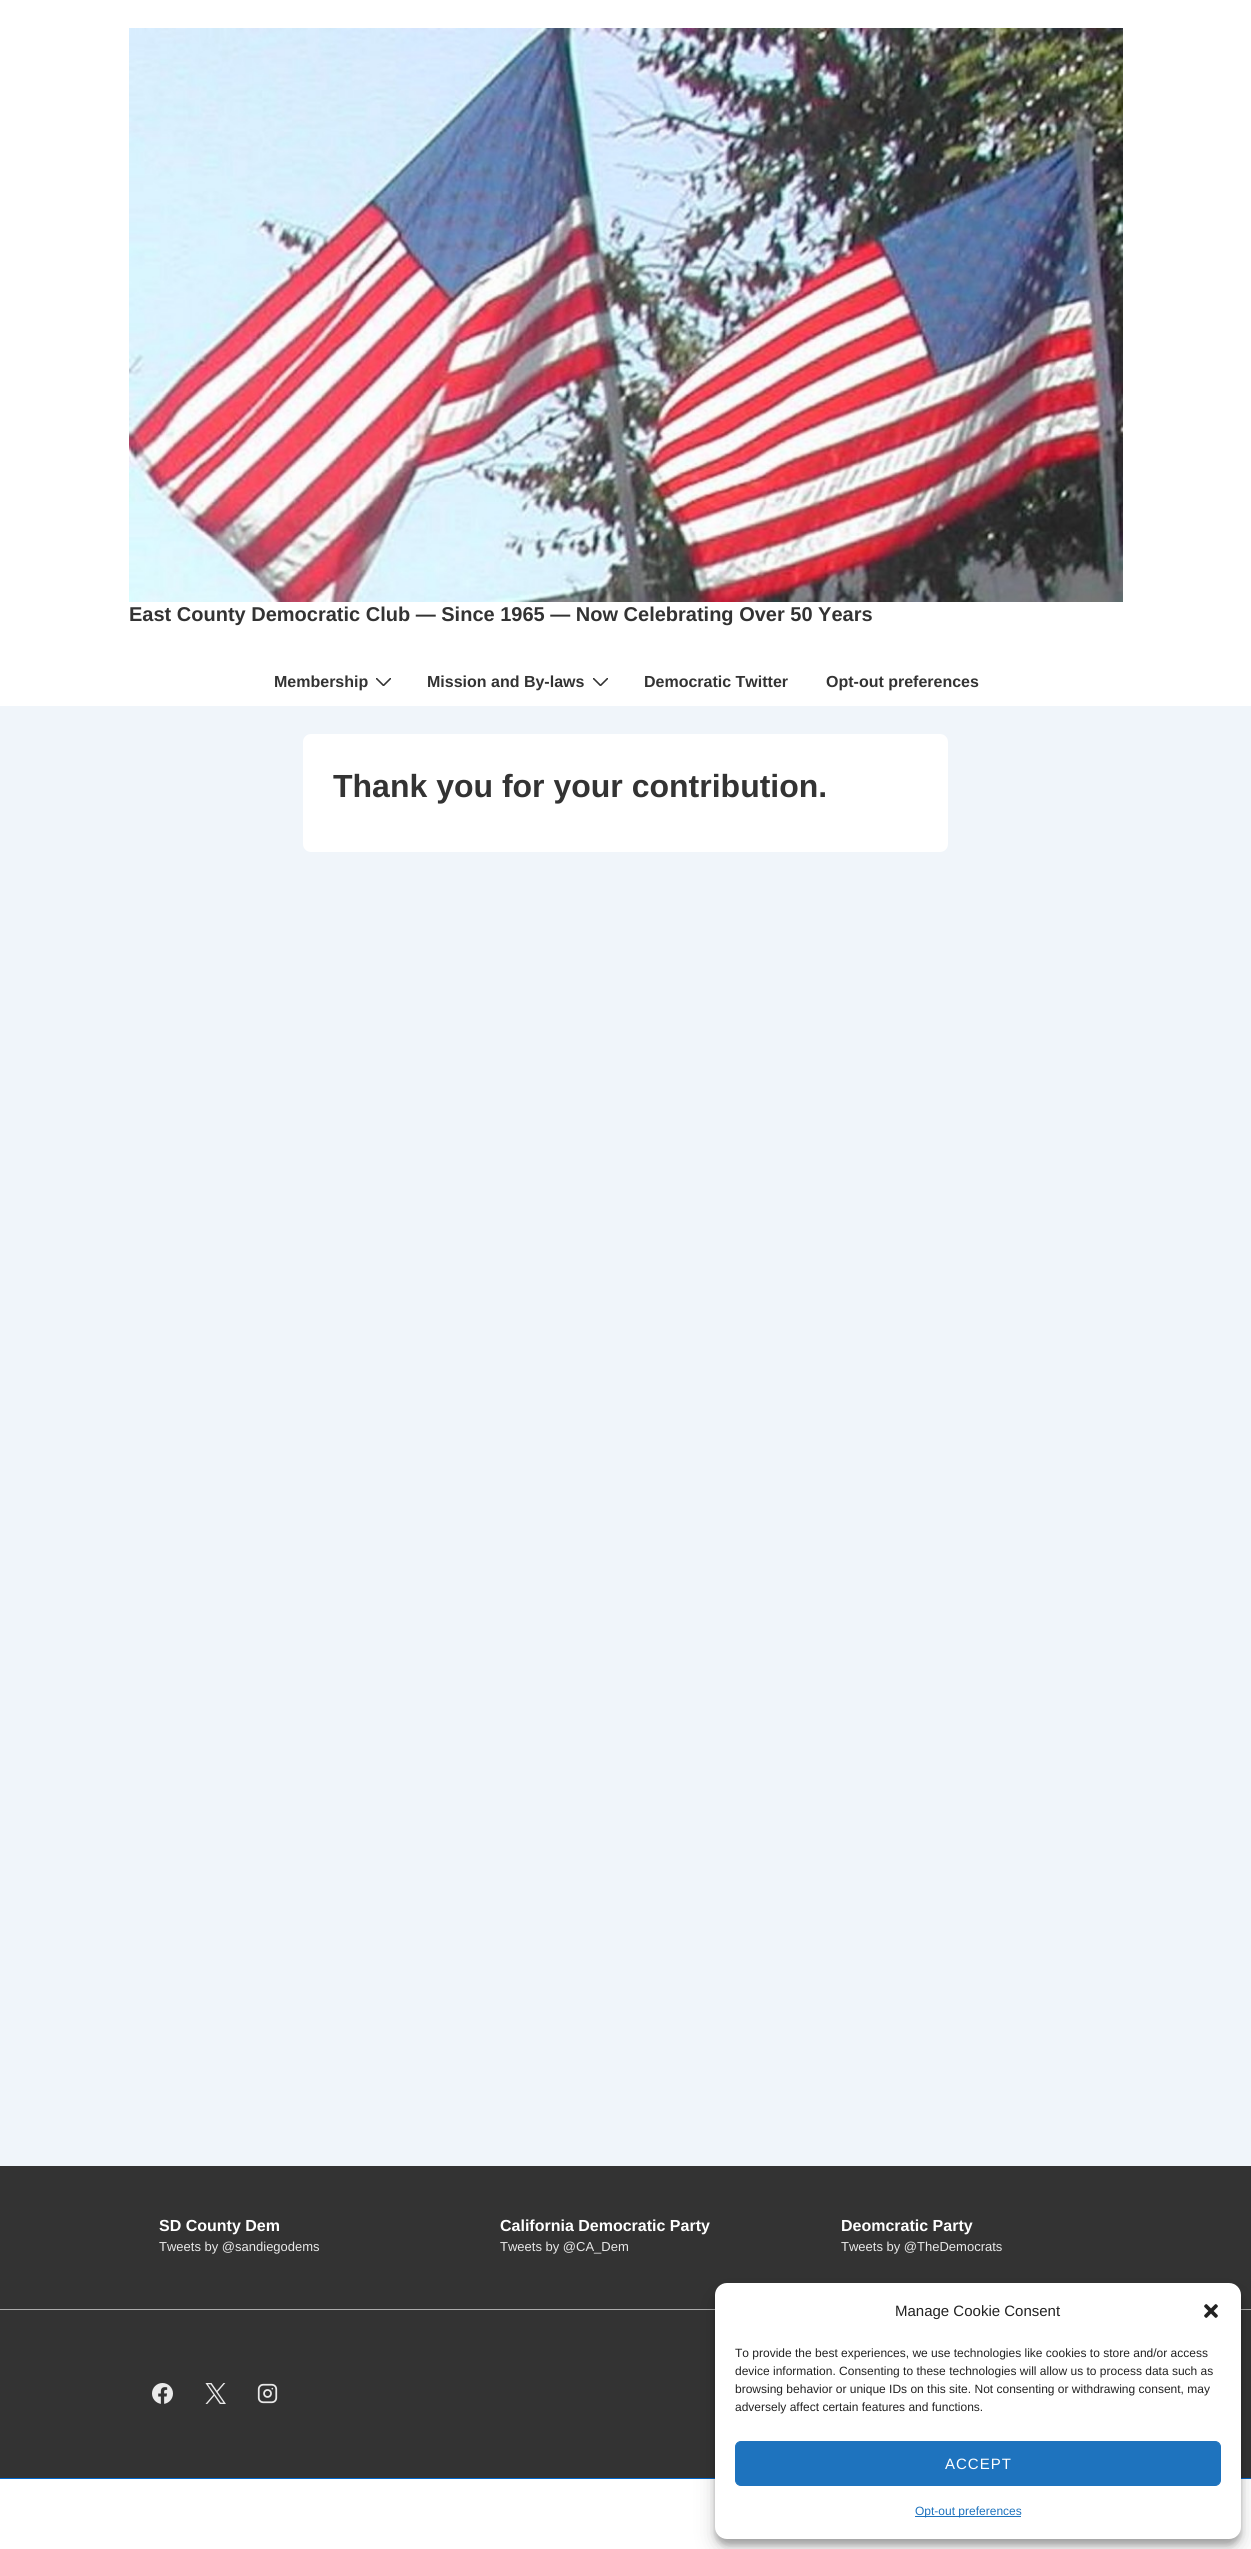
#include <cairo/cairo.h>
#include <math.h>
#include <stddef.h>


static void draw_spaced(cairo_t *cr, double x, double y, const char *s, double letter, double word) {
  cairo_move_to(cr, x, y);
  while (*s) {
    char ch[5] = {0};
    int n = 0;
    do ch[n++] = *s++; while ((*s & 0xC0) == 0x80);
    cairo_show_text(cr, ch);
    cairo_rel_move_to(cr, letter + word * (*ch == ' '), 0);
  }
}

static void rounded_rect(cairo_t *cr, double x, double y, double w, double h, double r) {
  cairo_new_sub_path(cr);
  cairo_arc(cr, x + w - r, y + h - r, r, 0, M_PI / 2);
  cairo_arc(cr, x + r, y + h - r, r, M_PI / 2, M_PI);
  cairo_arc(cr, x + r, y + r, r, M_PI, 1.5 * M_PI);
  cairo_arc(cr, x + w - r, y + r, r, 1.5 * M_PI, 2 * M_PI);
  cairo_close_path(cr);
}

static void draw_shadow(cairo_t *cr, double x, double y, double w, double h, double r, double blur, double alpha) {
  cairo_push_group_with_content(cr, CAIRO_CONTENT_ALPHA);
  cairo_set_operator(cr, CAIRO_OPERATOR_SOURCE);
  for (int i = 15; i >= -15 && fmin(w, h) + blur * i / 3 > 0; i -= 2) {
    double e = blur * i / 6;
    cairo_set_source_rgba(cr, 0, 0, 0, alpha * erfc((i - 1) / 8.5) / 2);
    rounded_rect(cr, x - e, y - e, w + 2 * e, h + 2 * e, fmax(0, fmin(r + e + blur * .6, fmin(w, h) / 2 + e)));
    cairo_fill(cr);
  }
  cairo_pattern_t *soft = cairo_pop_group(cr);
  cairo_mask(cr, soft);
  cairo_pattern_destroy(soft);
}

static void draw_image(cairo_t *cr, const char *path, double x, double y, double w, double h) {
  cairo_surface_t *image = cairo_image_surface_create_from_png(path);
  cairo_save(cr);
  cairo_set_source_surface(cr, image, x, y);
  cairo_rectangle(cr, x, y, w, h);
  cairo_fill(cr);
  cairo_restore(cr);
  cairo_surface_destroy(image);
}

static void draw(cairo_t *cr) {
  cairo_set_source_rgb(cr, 240 / 255.0, 245 / 255.0, 250 / 255.0);
  cairo_paint(cr);
  cairo_set_source_rgb(cr, 1, 1, 1);
  cairo_rectangle(cr, 0, 0, 1251, 706);
  cairo_fill(cr);
  draw_image(cr, "images/1.png", 129, 28, 994, 574);
  cairo_save(cr);
  cairo_rectangle(cr, 376, 678, 15, 8);
  cairo_clip(cr);
  cairo_new_path(cr);
  cairo_move_to(cr, 376.5, 678.5);
  cairo_line_to(cr, 383.5, 685.5);
  cairo_line_to(cr, 390.5, 678.5);
  cairo_set_source_rgb(cr, 51 / 255.0, 51 / 255.0, 51 / 255.0);
  cairo_set_line_width(cr, 1.6);
  cairo_set_line_cap(cr, CAIRO_LINE_CAP_ROUND);
  cairo_stroke(cr);
  cairo_restore(cr);
  cairo_save(cr);
  cairo_rectangle(cr, 593, 678, 15, 8);
  cairo_clip(cr);
  cairo_new_path(cr);
  cairo_move_to(cr, 593.5, 678.5);
  cairo_line_to(cr, 600.5, 685.5);
  cairo_line_to(cr, 607.5, 678.5);
  cairo_set_source_rgb(cr, 51 / 255.0, 51 / 255.0, 51 / 255.0);
  cairo_set_line_width(cr, 1.6);
  cairo_set_line_cap(cr, CAIRO_LINE_CAP_ROUND);
  cairo_stroke(cr);
  cairo_restore(cr);
  rounded_rect(cr, 303, 734, 645, 118, 8);
  cairo_fill(cr);
  cairo_set_source_rgb(cr, 51 / 255.0, 51 / 255.0, 51 / 255.0);
  cairo_rectangle(cr, 0, 2166, 1251, 312);
  cairo_fill(cr);
  cairo_set_source_rgb(cr, 170 / 255.0, 170 / 255.0, 170 / 255.0);
  cairo_rectangle(cr, 0, 2309, 1251, 1);
  cairo_fill(cr);
  draw_image(cr, "images/2.png", 152, 2383, 21, 21);
  draw_image(cr, "images/3.png", 205, 2383, 21, 21);
  draw_image(cr, "images/4.png", 257, 2383, 21, 21);
  cairo_set_source_rgb(cr, 1, 1, 1);
  cairo_rectangle(cr, 0, 2479, 1251, 70);
  cairo_fill(cr);
  cairo_set_source_rgb(cr, 0, 102 / 255.0, 204 / 255.0);
  cairo_rectangle(cr, 0, 2478, 1251, 1);
  cairo_fill(cr);
  cairo_set_source_rgb(cr, 0, 0, 0);
  draw_shadow(cr, 715, 2289, 526, 256, 12, 3, 0.23);
  draw_shadow(cr, 715, 2293, 526, 256, 12, 10, 0.19);
  cairo_set_source_rgb(cr, 1, 1, 1);
  rounded_rect(cr, 715, 2283, 526, 256, 12);
  cairo_fill(cr);
  draw_image(cr, "images/5.png", 1204, 2304, 14, 14);
  cairo_set_source_rgb(cr, 30 / 255.0, 115 / 255.0, 190 / 255.0);
  rounded_rect(cr, 735.5, 2441.5, 485, 44, 5.5);
  cairo_fill_preserve(cr);
  cairo_set_line_width(cr, 1);
  cairo_stroke(cr);
  cairo_rectangle(cr, 915, 2516, 106, 1);
  cairo_fill(cr);
  cairo_select_font_face(cr, "Liberation Sans", CAIRO_FONT_SLANT_NORMAL, CAIRO_FONT_WEIGHT_BOLD);
  cairo_set_font_size(cr, 20);
  cairo_set_source_rgb(cr, 51 / 255.0, 51 / 255.0, 51 / 255.0);
  cairo_move_to(cr, 129, 621);
  cairo_show_text(cr, "East County Democratic Club — Since 1965 — Now Celebrating Over 50 Years");
  cairo_set_font_size(cr, 16);
  cairo_move_to(cr, 274, 687);
  cairo_show_text(cr, "Membership");
  cairo_move_to(cr, 427, 687);
  cairo_show_text(cr, "Mission and By-laws");
  cairo_move_to(cr, 644, 687);
  cairo_show_text(cr, "Democratic Twitter");
  cairo_move_to(cr, 826, 687);
  cairo_show_text(cr, "Opt-out preferences");
  cairo_set_font_size(cr, 32);
  cairo_move_to(cr, 333, 797);
  cairo_show_text(cr, "Thank you for your contribution.");
  cairo_set_font_size(cr, 16);
  cairo_set_source_rgb(cr, 1, 1, 1);
  cairo_move_to(cr, 159, 2231);
  cairo_show_text(cr, "SD County Dem");
  cairo_select_font_face(cr, "Liberation Sans", CAIRO_FONT_SLANT_NORMAL, CAIRO_FONT_WEIGHT_NORMAL);
  cairo_set_font_size(cr, 13);
  cairo_set_source_rgb(cr, 234 / 255.0, 234 / 255.0, 234 / 255.0);
  cairo_move_to(cr, 159, 2251);
  cairo_show_text(cr, "Tweets by @sandiegodems");
  cairo_select_font_face(cr, "Liberation Sans", CAIRO_FONT_SLANT_NORMAL, CAIRO_FONT_WEIGHT_BOLD);
  cairo_set_font_size(cr, 16);
  cairo_set_source_rgb(cr, 1, 1, 1);
  cairo_move_to(cr, 500, 2231);
  cairo_show_text(cr, "California Democratic Party");
  cairo_select_font_face(cr, "Liberation Sans", CAIRO_FONT_SLANT_NORMAL, CAIRO_FONT_WEIGHT_NORMAL);
  cairo_set_font_size(cr, 13);
  cairo_set_source_rgb(cr, 234 / 255.0, 234 / 255.0, 234 / 255.0);
  cairo_move_to(cr, 500, 2251);
  cairo_show_text(cr, "Tweets by @CA_Dem");
  cairo_select_font_face(cr, "Liberation Sans", CAIRO_FONT_SLANT_NORMAL, CAIRO_FONT_WEIGHT_BOLD);
  cairo_set_font_size(cr, 16);
  cairo_set_source_rgb(cr, 1, 1, 1);
  cairo_move_to(cr, 841, 2231);
  cairo_show_text(cr, "Deomcratic Party");
  cairo_select_font_face(cr, "Liberation Sans", CAIRO_FONT_SLANT_NORMAL, CAIRO_FONT_WEIGHT_NORMAL);
  cairo_set_font_size(cr, 13);
  cairo_set_source_rgb(cr, 234 / 255.0, 234 / 255.0, 234 / 255.0);
  cairo_move_to(cr, 841, 2251);
  cairo_show_text(cr, "Tweets by @TheDemocrats");
  cairo_set_font_size(cr, 15);
  cairo_set_source_rgb(cr, 34 / 255.0, 34 / 255.0, 34 / 255.0);
  cairo_move_to(cr, 895, 2316);
  cairo_show_text(cr, "Manage Cookie Consent");
  cairo_set_font_size(cr, 12);
  cairo_move_to(cr, 735, 2357);
  cairo_show_text(cr, "To provide the best experiences, we use technologies like cookies to store and/or access");
  cairo_move_to(cr, 735, 2375);
  cairo_show_text(cr, "device information. Consenting to these technologies will allow us to process data such as");
  cairo_move_to(cr, 735, 2393);
  cairo_show_text(cr, "browsing behavior or unique IDs on this site. Not consenting or withdrawing consent, may");
  cairo_move_to(cr, 735, 2411);
  cairo_show_text(cr, "adversely affect certain features and functions.");
  cairo_set_font_size(cr, 15);
  cairo_set_source_rgb(cr, 1, 1, 1);
  draw_spaced(cr, 945, 2469, "ACCEPT", 1, 0);
  cairo_set_font_size(cr, 12);
  cairo_set_source_rgb(cr, 30 / 255.0, 115 / 255.0, 190 / 255.0);
  cairo_move_to(cr, 915, 2515);
  cairo_show_text(cr, "Opt-out preferences");
}

int main(void) {
  cairo_surface_t *surface = cairo_image_surface_create(CAIRO_FORMAT_RGB24, 1251, 2549);
  cairo_t *cr = cairo_create(surface);
  cairo_font_options_t *options = cairo_font_options_create();
  cairo_font_options_set_hint_metrics(options, CAIRO_HINT_METRICS_OFF);
  cairo_font_options_set_hint_style(options, CAIRO_HINT_STYLE_NONE);
  cairo_set_font_options(cr, options);
  cairo_set_miter_limit(cr, 4);
  draw(cr);
  cairo_surface_write_to_png(surface, "out.png");
  cairo_font_options_destroy(options);
  cairo_destroy(cr);
  cairo_surface_destroy(surface);
  return 0;
}
